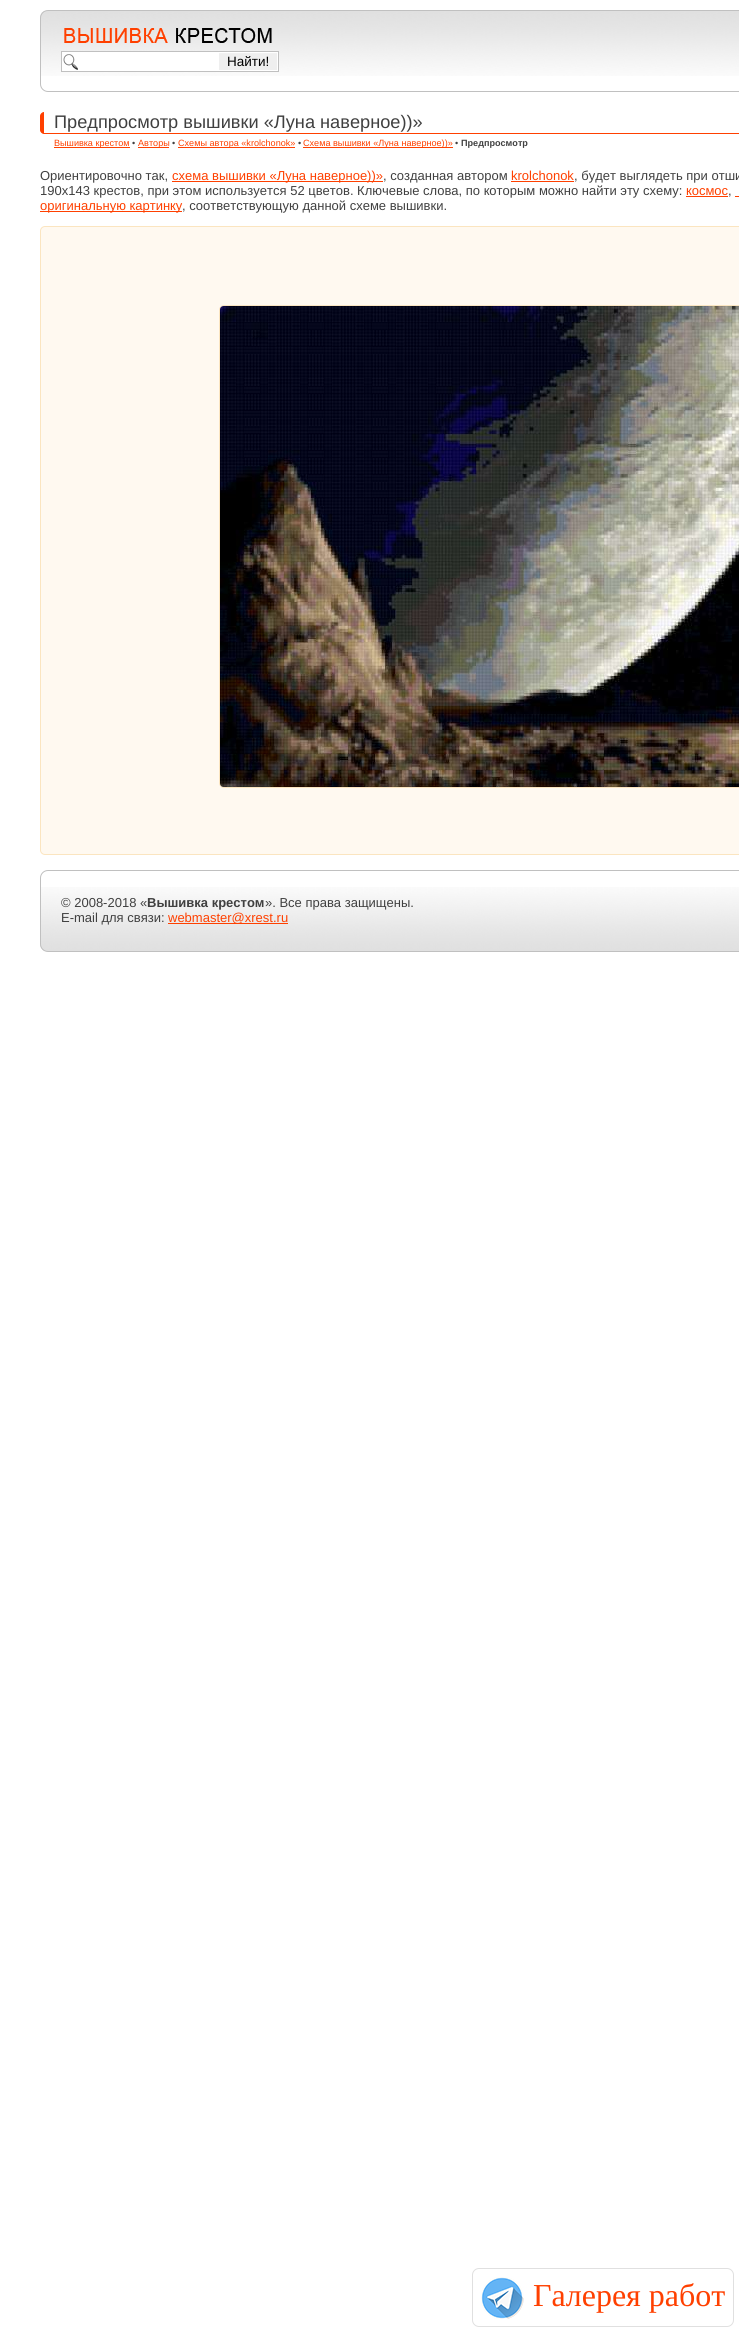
#include <cairo/cairo.h>
#include <math.h>
#include <stddef.h>


static void rounded_rect(cairo_t *cr, double x, double y, double w, double h, double r) {
  cairo_new_sub_path(cr);
  cairo_arc(cr, x + w - r, y + h - r, r, 0, M_PI / 2);
  cairo_arc(cr, x + r, y + h - r, r, M_PI / 2, M_PI);
  cairo_arc(cr, x + r, y + r, r, M_PI, 1.5 * M_PI);
  cairo_arc(cr, x + w - r, y + r, r, 1.5 * M_PI, 2 * M_PI);
  cairo_close_path(cr);
}

static void draw_image(cairo_t *cr, const char *path, double x, double y, double w, double h) {
  cairo_surface_t *image = cairo_image_surface_create_from_png(path);
  cairo_save(cr);
  cairo_set_source_surface(cr, image, x, y);
  cairo_rectangle(cr, x, y, w, h);
  cairo_fill(cr);
  cairo_restore(cr);
  cairo_surface_destroy(image);
}

static void draw(cairo_t *cr) {
  cairo_set_source_rgb(cr, 1, 1, 1);
  cairo_paint(cr);
  draw_image(cr, "images/1.png", 40, 11, 699, 65);
  rounded_rect(cr, 40.5, 10.5, 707, 81, 7.5);
  cairo_set_source_rgb(cr, 192 / 255.0, 192 / 255.0, 192 / 255.0);
  cairo_set_line_width(cr, 1);
  cairo_stroke(cr);
  draw_image(cr, "images/2.png", 64, 28, 208, 15);
  cairo_set_source_rgb(cr, 1, 1, 1);
  cairo_rectangle(cr, 62, 52, 156, 19);
  cairo_fill(cr);
  draw_image(cr, "images/3.png", 63, 54, 15, 16);
  cairo_rectangle(cr, 61.5, 51.5, 217, 20);
  cairo_set_source_rgb(cr, 192 / 255.0, 192 / 255.0, 192 / 255.0);
  cairo_stroke(cr);
  cairo_set_source_rgb(cr, 239 / 255.0, 239 / 255.0, 239 / 255.0);
  cairo_rectangle(cr, 219, 54, 58, 16);
  cairo_fill(cr);
  cairo_rectangle(cr, 218.5, 52.5, 59, 18);
  cairo_set_source_rgb(cr, 1, 1, 1);
  cairo_stroke(cr);
  cairo_set_source_rgb(cr, 1, 64 / 255.0, 0);
  cairo_set_fill_rule(cr, CAIRO_FILL_RULE_EVEN_ODD);
  cairo_new_path(cr);
  cairo_move_to(cr, 44, 112);
  cairo_line_to(cr, 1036, 112);
  cairo_curve_to(cr, 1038, 112, 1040, 114, 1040, 116);
  cairo_line_to(cr, 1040, 130);
  cairo_curve_to(cr, 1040, 132, 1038, 134, 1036, 134);
  cairo_line_to(cr, 44, 134);
  cairo_curve_to(cr, 42, 134, 40, 132, 40, 130);
  cairo_line_to(cr, 40, 116);
  cairo_curve_to(cr, 40, 114, 42, 112, 44, 112);
  cairo_close_path(cr);
  cairo_move_to(cr, 44, 112);
  cairo_line_to(cr, 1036, 112);
  cairo_curve_to(cr, 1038, 112, 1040, 114, 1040, 116);
  cairo_line_to(cr, 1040, 130);
  cairo_curve_to(cr, 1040, 132, 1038, 133, 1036, 133);
  cairo_line_to(cr, 44, 133);
  cairo_close_path(cr);
  cairo_fill(cr);
  cairo_rectangle(cr, 54, 147, 76, 1);
  cairo_fill(cr);
  cairo_rectangle(cr, 138, 147, 31, 1);
  cairo_fill(cr);
  cairo_rectangle(cr, 178, 147, 117, 1);
  cairo_fill(cr);
  cairo_rectangle(cr, 303, 147, 150, 1);
  cairo_fill(cr);
  cairo_rectangle(cr, 172, 181, 211, 1);
  cairo_fill(cr);
  cairo_rectangle(cr, 511, 181, 63, 1);
  cairo_fill(cr);
  cairo_rectangle(cr, 686, 196, 42, 1);
  cairo_fill(cr);
  cairo_rectangle(cr, 735, 196, 4, 1);
  cairo_fill(cr);
  cairo_rectangle(cr, 40, 211, 142, 1);
  cairo_fill(cr);
  cairo_set_source_rgb(cr, 1, 249 / 255.0, 240 / 255.0);
  rounded_rect(cr, 40.5, 226.5, 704, 628, 4.5);
  cairo_fill_preserve(cr);
  cairo_set_source_rgb(cr, 251 / 255.0, 229 / 255.0, 192 / 255.0);
  cairo_stroke(cr);
  rounded_rect(cr, 219.5, 305.5, 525, 482, 4.5);
  cairo_stroke(cr);
  draw_image(cr, "images/4.png", 220, 306, 519, 481);
  draw_image(cr, "images/5.png", 40, 887, 699, 64);
  rounded_rect(cr, 40.5, 870.5, 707, 81, 7.5);
  cairo_set_source_rgb(cr, 192 / 255.0, 192 / 255.0, 192 / 255.0);
  cairo_stroke(cr);
  cairo_set_source_rgb(cr, 1, 64 / 255.0, 0);
  cairo_rectangle(cr, 168, 923, 120, 1);
  cairo_fill(cr);
  draw_image(cr, "images/6.png", 481, 2277, 43, 42);
  rounded_rect(cr, 472.5, 2268.5, 261, 58, 6.5);
  cairo_set_source_rgb(cr, 224 / 255.0, 224 / 255.0, 224 / 255.0);
  cairo_stroke(cr);
  cairo_select_font_face(cr, "Liberation Sans", CAIRO_FONT_SLANT_NORMAL, CAIRO_FONT_WEIGHT_NORMAL);
  cairo_set_font_size(cr, 13.5);
  cairo_set_source_rgb(cr, 0, 0, 0);
  cairo_move_to(cr, 227, 66);
  cairo_show_text(cr, "Найти!");
  cairo_set_font_size(cr, 18.2);
  cairo_set_source_rgb(cr, 64 / 255.0, 64 / 255.0, 64 / 255.0);
  cairo_move_to(cr, 54, 128);
  cairo_show_text(cr, "Предпросмотр вышивки «Луна наверное))»");
  cairo_set_font_size(cr, 9.1);
  cairo_set_source_rgb(cr, 1, 64 / 255.0, 0);
  cairo_move_to(cr, 54, 146);
  cairo_show_text(cr, "Вышивка крестом");
  cairo_set_source_rgb(cr, 64 / 255.0, 64 / 255.0, 64 / 255.0);
  cairo_move_to(cr, 132, 146);
  cairo_show_text(cr, "•");
  cairo_set_source_rgb(cr, 1, 64 / 255.0, 0);
  cairo_move_to(cr, 138, 146);
  cairo_show_text(cr, "Авторы");
  cairo_set_source_rgb(cr, 64 / 255.0, 64 / 255.0, 64 / 255.0);
  cairo_move_to(cr, 172, 146);
  cairo_show_text(cr, "•");
  cairo_set_source_rgb(cr, 1, 64 / 255.0, 0);
  cairo_move_to(cr, 178, 146);
  cairo_show_text(cr, "Схемы автора «krolchonok»");
  cairo_set_source_rgb(cr, 64 / 255.0, 64 / 255.0, 64 / 255.0);
  cairo_move_to(cr, 298, 146);
  cairo_show_text(cr, "•");
  cairo_set_source_rgb(cr, 1, 64 / 255.0, 0);
  cairo_move_to(cr, 303, 146);
  cairo_show_text(cr, "Схема вышивки «Луна наверное))»");
  cairo_set_source_rgb(cr, 64 / 255.0, 64 / 255.0, 64 / 255.0);
  cairo_move_to(cr, 455, 146);
  cairo_show_text(cr, "•");
  cairo_select_font_face(cr, "Liberation Sans", CAIRO_FONT_SLANT_NORMAL, CAIRO_FONT_WEIGHT_BOLD);
  cairo_move_to(cr, 461, 146);
  cairo_show_text(cr, "Предпросмотр");
  cairo_select_font_face(cr, "Liberation Sans", CAIRO_FONT_SLANT_NORMAL, CAIRO_FONT_WEIGHT_NORMAL);
  cairo_set_font_size(cr, 13);
  cairo_move_to(cr, 40, 180);
  cairo_show_text(cr, "Ориентировочно так,");
  cairo_set_source_rgb(cr, 1, 64 / 255.0, 0);
  cairo_move_to(cr, 172, 180);
  cairo_show_text(cr, "схема вышивки «Луна наверное))»");
  cairo_set_source_rgb(cr, 64 / 255.0, 64 / 255.0, 64 / 255.0);
  cairo_move_to(cr, 383, 180);
  cairo_show_text(cr, ", созданная автором");
  cairo_set_source_rgb(cr, 1, 64 / 255.0, 0);
  cairo_move_to(cr, 511, 180);
  cairo_show_text(cr, "krolchonok");
  cairo_set_source_rgb(cr, 64 / 255.0, 64 / 255.0, 64 / 255.0);
  cairo_move_to(cr, 574, 180);
  cairo_show_text(cr, ", будет выглядеть при отши");
  cairo_move_to(cr, 40, 195);
  cairo_show_text(cr, "190x143 крестов, при этом используется 52 цветов. Ключевые слова, по которым можно найти эту схему:");
  cairo_set_source_rgb(cr, 1, 64 / 255.0, 0);
  cairo_move_to(cr, 686, 195);
  cairo_show_text(cr, "космос");
  cairo_set_source_rgb(cr, 64 / 255.0, 64 / 255.0, 64 / 255.0);
  cairo_move_to(cr, 728, 195);
  cairo_show_text(cr, ",");
  cairo_set_source_rgb(cr, 1, 64 / 255.0, 0);
  cairo_move_to(cr, 40, 210);
  cairo_show_text(cr, "оригинальную картинку");
  cairo_set_source_rgb(cr, 64 / 255.0, 64 / 255.0, 64 / 255.0);
  cairo_move_to(cr, 182, 210);
  cairo_show_text(cr, ", соответствующую данной схеме вышивки.");
  cairo_move_to(cr, 61, 907);
  cairo_show_text(cr, "© 2008-2018 «");
  cairo_select_font_face(cr, "Liberation Sans", CAIRO_FONT_SLANT_NORMAL, CAIRO_FONT_WEIGHT_BOLD);
  cairo_move_to(cr, 147, 907);
  cairo_show_text(cr, "Вышивка крестом");
  cairo_select_font_face(cr, "Liberation Sans", CAIRO_FONT_SLANT_NORMAL, CAIRO_FONT_WEIGHT_NORMAL);
  cairo_move_to(cr, 265, 907);
  cairo_show_text(cr, "». Все права защищены.");
  cairo_move_to(cr, 61, 922);
  cairo_show_text(cr, "E-mail для связи:");
  cairo_set_source_rgb(cr, 1, 64 / 255.0, 0);
  cairo_move_to(cr, 168, 922);
  cairo_show_text(cr, "webmaster@xrest.ru");
  cairo_select_font_face(cr, "Liberation Serif", CAIRO_FONT_SLANT_NORMAL, CAIRO_FONT_WEIGHT_NORMAL);
  cairo_set_font_size(cr, 32);
  cairo_move_to(cr, 533, 2306);
  cairo_show_text(cr, "Галерея работ");
}

int main(void) {
  cairo_surface_t *surface = cairo_image_surface_create(CAIRO_FORMAT_RGB24, 739, 2332);
  cairo_t *cr = cairo_create(surface);
  cairo_font_options_t *options = cairo_font_options_create();
  cairo_font_options_set_hint_metrics(options, CAIRO_HINT_METRICS_OFF);
  cairo_font_options_set_hint_style(options, CAIRO_HINT_STYLE_NONE);
  cairo_set_font_options(cr, options);
  cairo_set_miter_limit(cr, 4);
  draw(cr);
  cairo_surface_write_to_png(surface, "out.png");
  cairo_font_options_destroy(options);
  cairo_destroy(cr);
  cairo_surface_destroy(surface);
  return 0;
}
